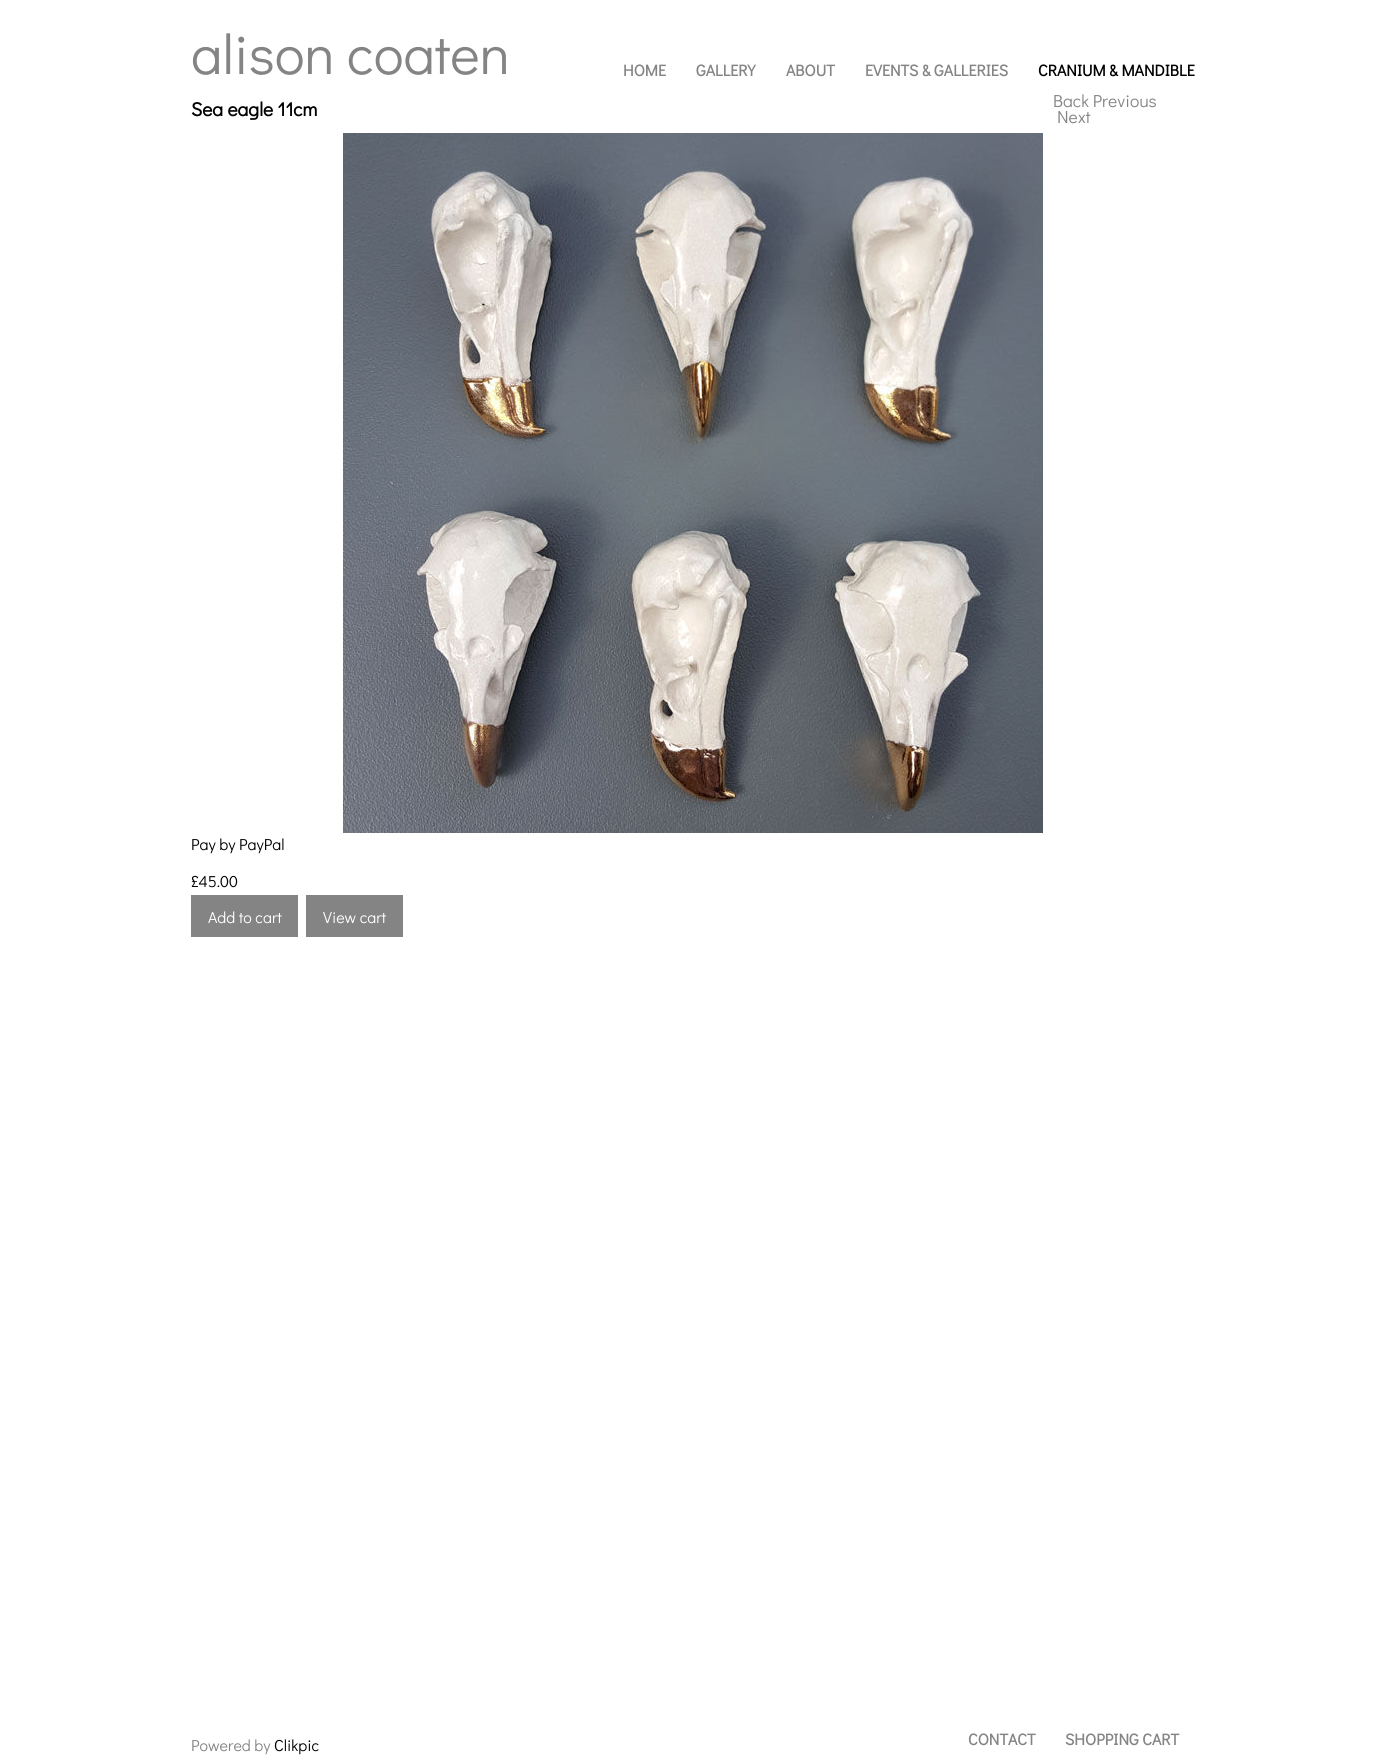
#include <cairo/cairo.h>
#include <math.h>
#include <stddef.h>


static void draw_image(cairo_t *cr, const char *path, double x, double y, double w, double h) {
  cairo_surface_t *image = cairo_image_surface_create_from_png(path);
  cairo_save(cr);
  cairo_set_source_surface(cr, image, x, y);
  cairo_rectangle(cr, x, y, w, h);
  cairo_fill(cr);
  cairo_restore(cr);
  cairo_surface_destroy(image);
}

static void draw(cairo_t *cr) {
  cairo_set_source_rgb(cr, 1, 1, 1);
  cairo_paint(cr);
  draw_image(cr, "images/1.png", 343, 133, 700, 700);
  cairo_set_source_rgb(cr, 132 / 255.0, 132 / 255.0, 132 / 255.0);
  cairo_rectangle(cr, 191, 895, 107, 42);
  cairo_fill(cr);
  cairo_rectangle(cr, 306, 895, 97, 42);
  cairo_fill(cr);
  cairo_select_font_face(cr, "Didact Gothic", CAIRO_FONT_SLANT_NORMAL, CAIRO_FONT_WEIGHT_NORMAL);
  cairo_set_font_size(cr, 56);
  cairo_move_to(cr, 191, 74);
  cairo_show_text(cr, "alison coaten");
  cairo_select_font_face(cr, "Didact Gothic", CAIRO_FONT_SLANT_NORMAL, CAIRO_FONT_WEIGHT_BOLD);
  cairo_set_font_size(cr, 16);
  cairo_move_to(cr, 623, 76);
  cairo_show_text(cr, "HOME");
  cairo_move_to(cr, 696, 76);
  cairo_show_text(cr, "GALLERY");
  cairo_move_to(cr, 786, 76);
  cairo_show_text(cr, "ABOUT");
  cairo_move_to(cr, 865, 76);
  cairo_show_text(cr, "EVENTS & GALLERIES");
  cairo_set_source_rgb(cr, 0, 0, 0);
  cairo_move_to(cr, 1038, 76);
  cairo_show_text(cr, "CRANIUM & MANDIBLE");
  cairo_set_font_size(cr, 19.25);
  cairo_move_to(cr, 191, 116);
  cairo_show_text(cr, "Sea eagle 11cm");
  cairo_select_font_face(cr, "Didact Gothic", CAIRO_FONT_SLANT_NORMAL, CAIRO_FONT_WEIGHT_NORMAL);
  cairo_set_font_size(cr, 17.5);
  cairo_set_source_rgb(cr, 132 / 255.0, 132 / 255.0, 132 / 255.0);
  cairo_move_to(cr, 1053, 107);
  cairo_show_text(cr, "Back Previous");
  cairo_move_to(cr, 1057, 123);
  cairo_show_text(cr, "Next");
  cairo_set_font_size(cr, 16);
  cairo_set_source_rgb(cr, 0, 0, 0);
  cairo_move_to(cr, 191, 850);
  cairo_show_text(cr, "Pay by PayPal");
  cairo_move_to(cr, 191, 887);
  cairo_show_text(cr, "£45.00");
  cairo_set_source_rgb(cr, 1, 1, 1);
  cairo_move_to(cr, 208, 923);
  cairo_show_text(cr, "Add to cart");
  cairo_move_to(cr, 323, 923);
  cairo_show_text(cr, "View cart");
  cairo_set_source_rgb(cr, 132 / 255.0, 132 / 255.0, 132 / 255.0);
  cairo_move_to(cr, 191, 1751);
  cairo_show_text(cr, "Powered by");
  cairo_set_source_rgb(cr, 0, 0, 0);
  cairo_move_to(cr, 274, 1751);
  cairo_show_text(cr, "Clikpic");
  cairo_select_font_face(cr, "Didact Gothic", CAIRO_FONT_SLANT_NORMAL, CAIRO_FONT_WEIGHT_BOLD);
  cairo_set_source_rgb(cr, 132 / 255.0, 132 / 255.0, 132 / 255.0);
  cairo_move_to(cr, 968, 1745);
  cairo_show_text(cr, "CONTACT");
  cairo_move_to(cr, 1065, 1745);
  cairo_show_text(cr, "SHOPPING CART");
}

int main(void) {
  cairo_surface_t *surface = cairo_image_surface_create(CAIRO_FORMAT_RGB24, 1385, 1763);
  cairo_t *cr = cairo_create(surface);
  cairo_font_options_t *options = cairo_font_options_create();
  cairo_font_options_set_hint_metrics(options, CAIRO_HINT_METRICS_OFF);
  cairo_font_options_set_hint_style(options, CAIRO_HINT_STYLE_NONE);
  cairo_set_font_options(cr, options);
  cairo_set_miter_limit(cr, 4);
  draw(cr);
  cairo_surface_write_to_png(surface, "out.png");
  cairo_font_options_destroy(options);
  cairo_destroy(cr);
  cairo_surface_destroy(surface);
  return 0;
}
